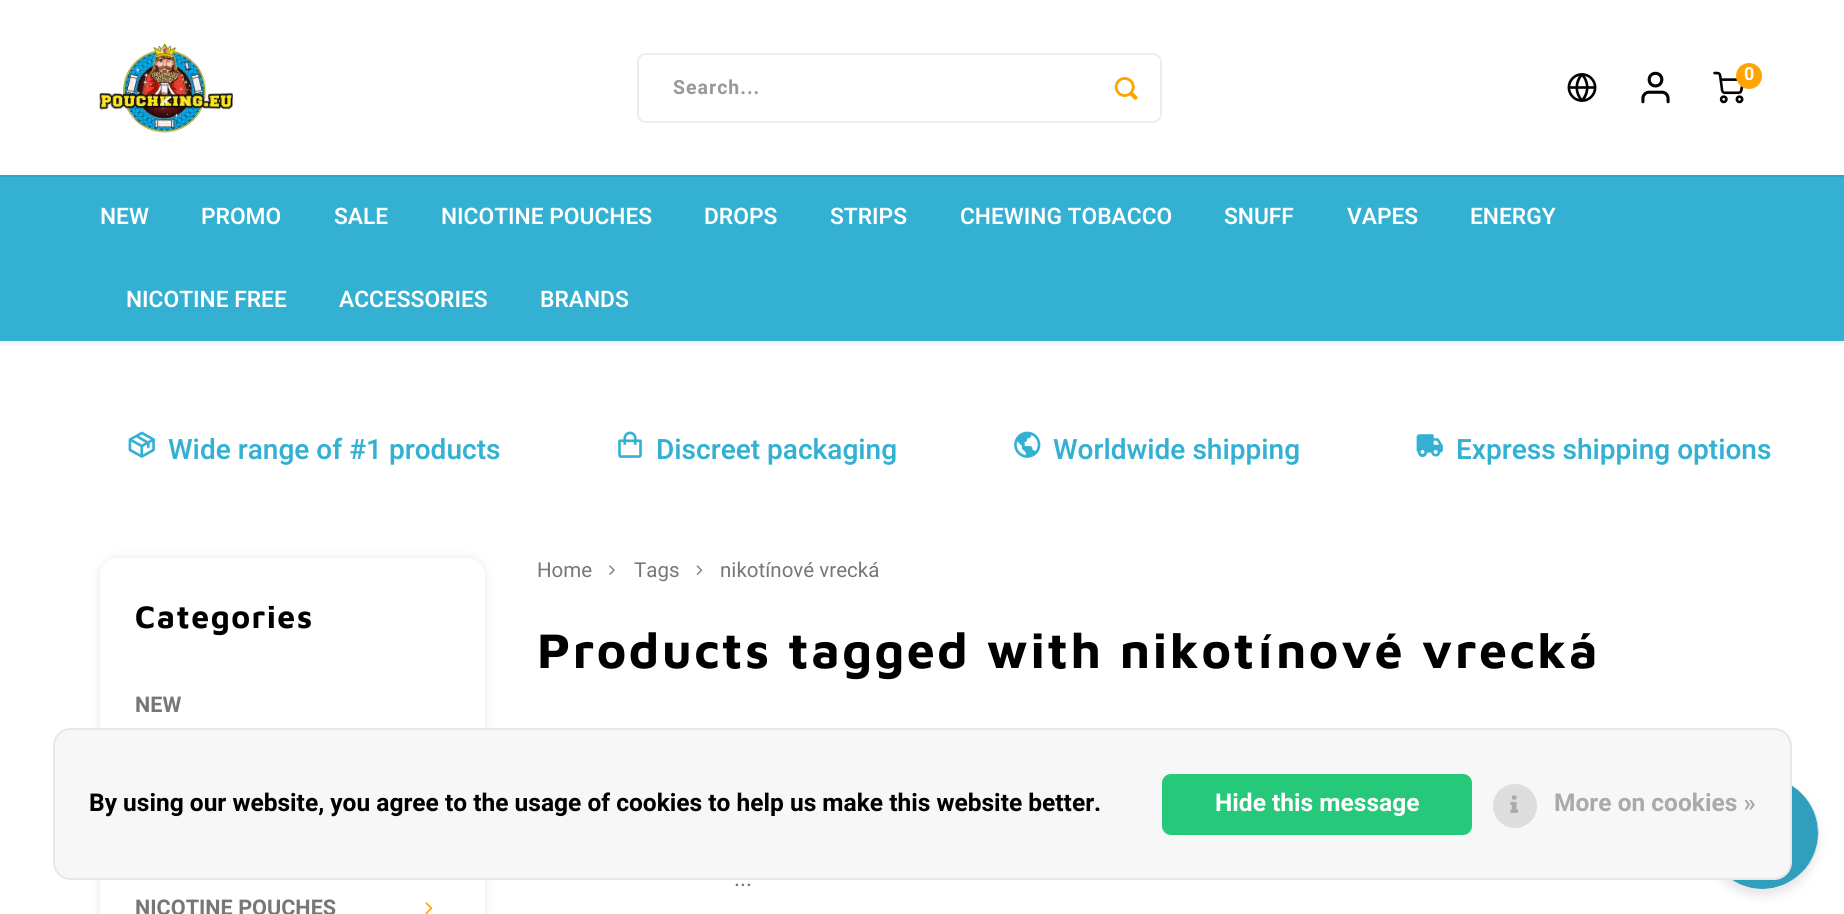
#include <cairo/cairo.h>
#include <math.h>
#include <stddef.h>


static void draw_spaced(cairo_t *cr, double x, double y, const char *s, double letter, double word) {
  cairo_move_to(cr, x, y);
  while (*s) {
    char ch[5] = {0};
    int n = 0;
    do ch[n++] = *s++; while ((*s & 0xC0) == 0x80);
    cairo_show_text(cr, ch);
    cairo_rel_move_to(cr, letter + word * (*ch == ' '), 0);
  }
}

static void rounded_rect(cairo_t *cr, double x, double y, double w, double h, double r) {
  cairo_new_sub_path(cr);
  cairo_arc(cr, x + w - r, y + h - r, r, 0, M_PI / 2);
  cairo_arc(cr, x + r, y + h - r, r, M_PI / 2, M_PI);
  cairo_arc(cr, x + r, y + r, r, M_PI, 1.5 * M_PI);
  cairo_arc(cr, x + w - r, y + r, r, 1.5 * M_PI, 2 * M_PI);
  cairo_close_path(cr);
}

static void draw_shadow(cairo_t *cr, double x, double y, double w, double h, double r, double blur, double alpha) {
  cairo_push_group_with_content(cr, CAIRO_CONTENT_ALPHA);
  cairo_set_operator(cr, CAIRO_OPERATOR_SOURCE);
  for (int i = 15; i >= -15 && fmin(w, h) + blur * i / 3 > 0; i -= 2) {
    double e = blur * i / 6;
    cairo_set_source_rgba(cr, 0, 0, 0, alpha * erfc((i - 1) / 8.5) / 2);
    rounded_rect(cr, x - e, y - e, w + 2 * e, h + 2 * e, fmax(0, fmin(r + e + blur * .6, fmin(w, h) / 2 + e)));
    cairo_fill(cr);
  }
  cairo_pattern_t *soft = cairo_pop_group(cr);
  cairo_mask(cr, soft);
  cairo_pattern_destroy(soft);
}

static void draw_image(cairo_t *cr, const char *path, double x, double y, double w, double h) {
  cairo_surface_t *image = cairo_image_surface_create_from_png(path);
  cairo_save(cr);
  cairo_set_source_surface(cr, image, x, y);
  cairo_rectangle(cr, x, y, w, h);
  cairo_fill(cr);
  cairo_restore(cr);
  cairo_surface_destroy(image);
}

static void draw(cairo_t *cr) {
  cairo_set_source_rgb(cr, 1, 1, 1);
  cairo_paint(cr);
  cairo_save(cr);
  cairo_rectangle(cr, 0, 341, 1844, 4);
  cairo_clip(cr);
  cairo_set_source_rgb(cr, 0, 0, 0);
  draw_shadow(cr, 0, 2, 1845, 341, 0, 3.5, 0.08);
  cairo_restore(cr);
  draw_image(cr, "images/1.png", 99, 43, 134, 91);
  draw_image(cr, "images/2.png", 1567, 73, 30, 29);
  draw_image(cr, "images/3.png", 1641, 71, 29, 33);
  draw_image(cr, "images/4.png", 1713, 71, 31, 33);
  cairo_set_source_rgb(cr, 1, 164 / 255.0, 0);
  cairo_arc(cr, 1749, 76, 13, 0, 2 * M_PI);
  cairo_fill(cr);
  rounded_rect(cr, 638, 54, 523, 68, 8);
  cairo_set_source_rgb(cr, 237 / 255.0, 237 / 255.0, 237 / 255.0);
  cairo_stroke(cr);
  draw_image(cr, "images/5.png", 1114, 77, 24, 23);
  cairo_set_source_rgb(cr, 52 / 255.0, 177 / 255.0, 210 / 255.0);
  cairo_rectangle(cr, 0, 177, 1844, 164);
  cairo_fill(cr);
  cairo_set_source_rgb(cr, 48 / 255.0, 165 / 255.0, 195 / 255.0);
  cairo_rectangle(cr, 0, 175, 1844, 2);
  cairo_fill(cr);
  draw_image(cr, "images/6.png", 128, 431, 27, 27);
  draw_image(cr, "images/7.png", 618, 431, 24, 27);
  draw_image(cr, "images/8.png", 1014, 431, 27, 27);
  draw_image(cr, "images/9.png", 1416, 434, 27, 23);
  cairo_save(cr);
  cairo_set_fill_rule(cr, CAIRO_FILL_RULE_EVEN_ODD);
  cairo_new_path(cr);
  cairo_move_to(cr, 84, 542);
  cairo_line_to(cr, 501, 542);
  cairo_line_to(cr, 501, 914);
  cairo_line_to(cr, 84, 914);
  cairo_close_path(cr);
  cairo_move_to(cr, 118, 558);
  cairo_line_to(cr, 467, 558);
  cairo_curve_to(cr, 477, 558, 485, 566, 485, 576);
  cairo_line_to(cr, 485, 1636);
  cairo_curve_to(cr, 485, 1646, 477, 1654, 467, 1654);
  cairo_line_to(cr, 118, 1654);
  cairo_curve_to(cr, 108, 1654, 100, 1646, 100, 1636);
  cairo_line_to(cr, 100, 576);
  cairo_curve_to(cr, 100, 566, 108, 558, 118, 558);
  cairo_close_path(cr);
  cairo_clip(cr);
  cairo_set_source_rgb(cr, 0, 0, 0);
  draw_shadow(cr, 100, 558, 385, 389, 18, 5, 0.1);
  cairo_restore(cr);
  draw_image(cr, "images/10.png", 425, 902, 8, 12);
  draw_image(cr, "images/11.png", 609, 565, 6, 10);
  draw_image(cr, "images/12.png", 696, 565, 7, 10);
  cairo_set_source_rgb(cr, 0, 0, 0);
  draw_shadow(cr, 1706, 784, 112, 112, 56, 5, 0.1);
  draw_image(cr, "images/14.png", 1732, 785, 87, 104);
  cairo_set_source_rgb(cr, 247 / 255.0, 247 / 255.0, 247 / 255.0);
  rounded_rect(cr, 53, 728, 1739, 152, 18);
  cairo_fill(cr);
  rounded_rect(cr, 54, 729, 1737, 150, 17);
  cairo_set_source_rgba(cr, 0, 0, 0, 0.07);
  cairo_stroke(cr);
  cairo_set_source_rgb(cr, 38 / 255.0, 200 / 255.0, 121 / 255.0);
  rounded_rect(cr, 1162, 774, 310, 61, 9);
  cairo_fill(cr);
  cairo_set_source_rgb(cr, 221 / 255.0, 221 / 255.0, 221 / 255.0);
  cairo_arc(cr, 1515, 806, 22, 0, 2 * M_PI);
  cairo_fill(cr);
  draw_image(cr, "images/13.png", 1510, 795, 9, 18);
  cairo_select_font_face(cr, "Heebo", CAIRO_FONT_SLANT_NORMAL, CAIRO_FONT_WEIGHT_BOLD);
  cairo_set_font_size(cr, 18);
  cairo_set_source_rgb(cr, 1, 1, 1);
  cairo_move_to(cr, 1744, 80);
  cairo_show_text(cr, "0");
  cairo_set_font_size(cr, 19.5);
  cairo_set_source_rgb(cr, 153 / 255.0, 153 / 255.0, 153 / 255.0);
  draw_spaced(cr, 673, 94, "Search...", 1, 0);
  cairo_select_font_face(cr, "Heebo SemiBold", CAIRO_FONT_SLANT_NORMAL, CAIRO_FONT_WEIGHT_NORMAL);
  cairo_set_font_size(cr, 22.75);
  cairo_set_source_rgb(cr, 1, 1, 1);
  cairo_move_to(cr, 100, 224);
  cairo_show_text(cr, "NEW");
  cairo_move_to(cr, 201, 224);
  cairo_show_text(cr, "PROMO");
  cairo_move_to(cr, 334, 224);
  cairo_show_text(cr, "SALE");
  cairo_move_to(cr, 441, 224);
  cairo_show_text(cr, "NICOTINE POUCHES");
  cairo_move_to(cr, 704, 224);
  cairo_show_text(cr, "DROPS");
  cairo_move_to(cr, 830, 224);
  cairo_show_text(cr, "STRIPS");
  cairo_move_to(cr, 960, 224);
  cairo_show_text(cr, "CHEWING TOBACCO");
  cairo_move_to(cr, 1224, 224);
  cairo_show_text(cr, "SNUFF");
  cairo_move_to(cr, 1347, 224);
  cairo_show_text(cr, "VAPES");
  cairo_move_to(cr, 1470, 224);
  cairo_show_text(cr, "ENERGY");
  cairo_move_to(cr, 126, 307);
  cairo_show_text(cr, "NICOTINE FREE");
  cairo_move_to(cr, 339, 307);
  cairo_show_text(cr, "ACCESSORIES");
  cairo_move_to(cr, 540, 307);
  cairo_show_text(cr, "BRANDS");
  cairo_set_font_size(cr, 28);
  cairo_set_source_rgb(cr, 52 / 255.0, 177 / 255.0, 210 / 255.0);
  cairo_move_to(cr, 168, 459);
  cairo_show_text(cr, "Wide range of #1 products");
  cairo_move_to(cr, 656, 459);
  cairo_show_text(cr, "Discreet packaging");
  cairo_move_to(cr, 1053, 459);
  cairo_show_text(cr, "Worldwide shipping");
  cairo_move_to(cr, 1456, 459);
  cairo_show_text(cr, "Express shipping options");
  cairo_select_font_face(cr, "Maven Pro", CAIRO_FONT_SLANT_NORMAL, CAIRO_FONT_WEIGHT_BOLD);
  cairo_set_font_size(cr, 32);
  cairo_set_source_rgb(cr, 0, 0, 0);
  draw_spaced(cr, 135, 628, "Categories", 1.5, 0);
  cairo_select_font_face(cr, "Heebo", CAIRO_FONT_SLANT_NORMAL, CAIRO_FONT_WEIGHT_BOLD);
  cairo_set_font_size(cr, 21.6);
  cairo_set_source_rgb(cr, 119 / 255.0, 119 / 255.0, 119 / 255.0);
  cairo_move_to(cr, 135, 712);
  cairo_show_text(cr, "NEW");
  cairo_move_to(cr, 135, 915);
  cairo_show_text(cr, "NICOTINE POUCHES");
  cairo_select_font_face(cr, "Heebo", CAIRO_FONT_SLANT_NORMAL, CAIRO_FONT_WEIGHT_NORMAL);
  cairo_set_font_size(cr, 20.5);
  cairo_move_to(cr, 537, 577);
  cairo_show_text(cr, "Home");
  cairo_move_to(cr, 634, 577);
  cairo_show_text(cr, "Tags");
  cairo_move_to(cr, 720, 577);
  cairo_show_text(cr, "nikotínové vrecká");
  cairo_select_font_face(cr, "Maven Pro", CAIRO_FONT_SLANT_NORMAL, CAIRO_FONT_WEIGHT_BOLD);
  cairo_set_font_size(cr, 50.05);
  cairo_set_source_rgb(cr, 0, 0, 0);
  draw_spaced(cr, 537, 668, "Products tagged with nikotínové vrecká", 2.5, 0);
  cairo_select_font_face(cr, "Heebo", CAIRO_FONT_SLANT_NORMAL, CAIRO_FONT_WEIGHT_NORMAL);
  cairo_set_font_size(cr, 22.75);
  cairo_set_source_rgb(cr, 119 / 255.0, 119 / 255.0, 119 / 255.0);
  cairo_move_to(cr, 734, 886);
  cairo_show_text(cr, "...");
  cairo_select_font_face(cr, "Heebo", CAIRO_FONT_SLANT_NORMAL, CAIRO_FONT_WEIGHT_BOLD);
  cairo_set_font_size(cr, 24.5);
  cairo_set_source_rgb(cr, 0, 0, 0);
  cairo_move_to(cr, 89, 811);
  cairo_show_text(cr, "By using our website, you agree to the usage of cookies to help us make this website better.");
  cairo_set_source_rgb(cr, 1, 1, 1);
  cairo_move_to(cr, 1215, 811);
  cairo_show_text(cr, "Hide this message");
  cairo_set_source_rgb(cr, 170 / 255.0, 170 / 255.0, 170 / 255.0);
  cairo_move_to(cr, 1554, 811);
  cairo_show_text(cr, "More on cookies »");
}

int main(void) {
  cairo_surface_t *surface = cairo_image_surface_create(CAIRO_FORMAT_RGB24, 1844, 914);
  cairo_t *cr = cairo_create(surface);
  cairo_font_options_t *options = cairo_font_options_create();
  cairo_font_options_set_hint_metrics(options, CAIRO_HINT_METRICS_OFF);
  cairo_font_options_set_hint_style(options, CAIRO_HINT_STYLE_NONE);
  cairo_set_font_options(cr, options);
  cairo_set_miter_limit(cr, 4);
  draw(cr);
  cairo_surface_write_to_png(surface, "out.png");
  cairo_font_options_destroy(options);
  cairo_destroy(cr);
  cairo_surface_destroy(surface);
  return 0;
}
